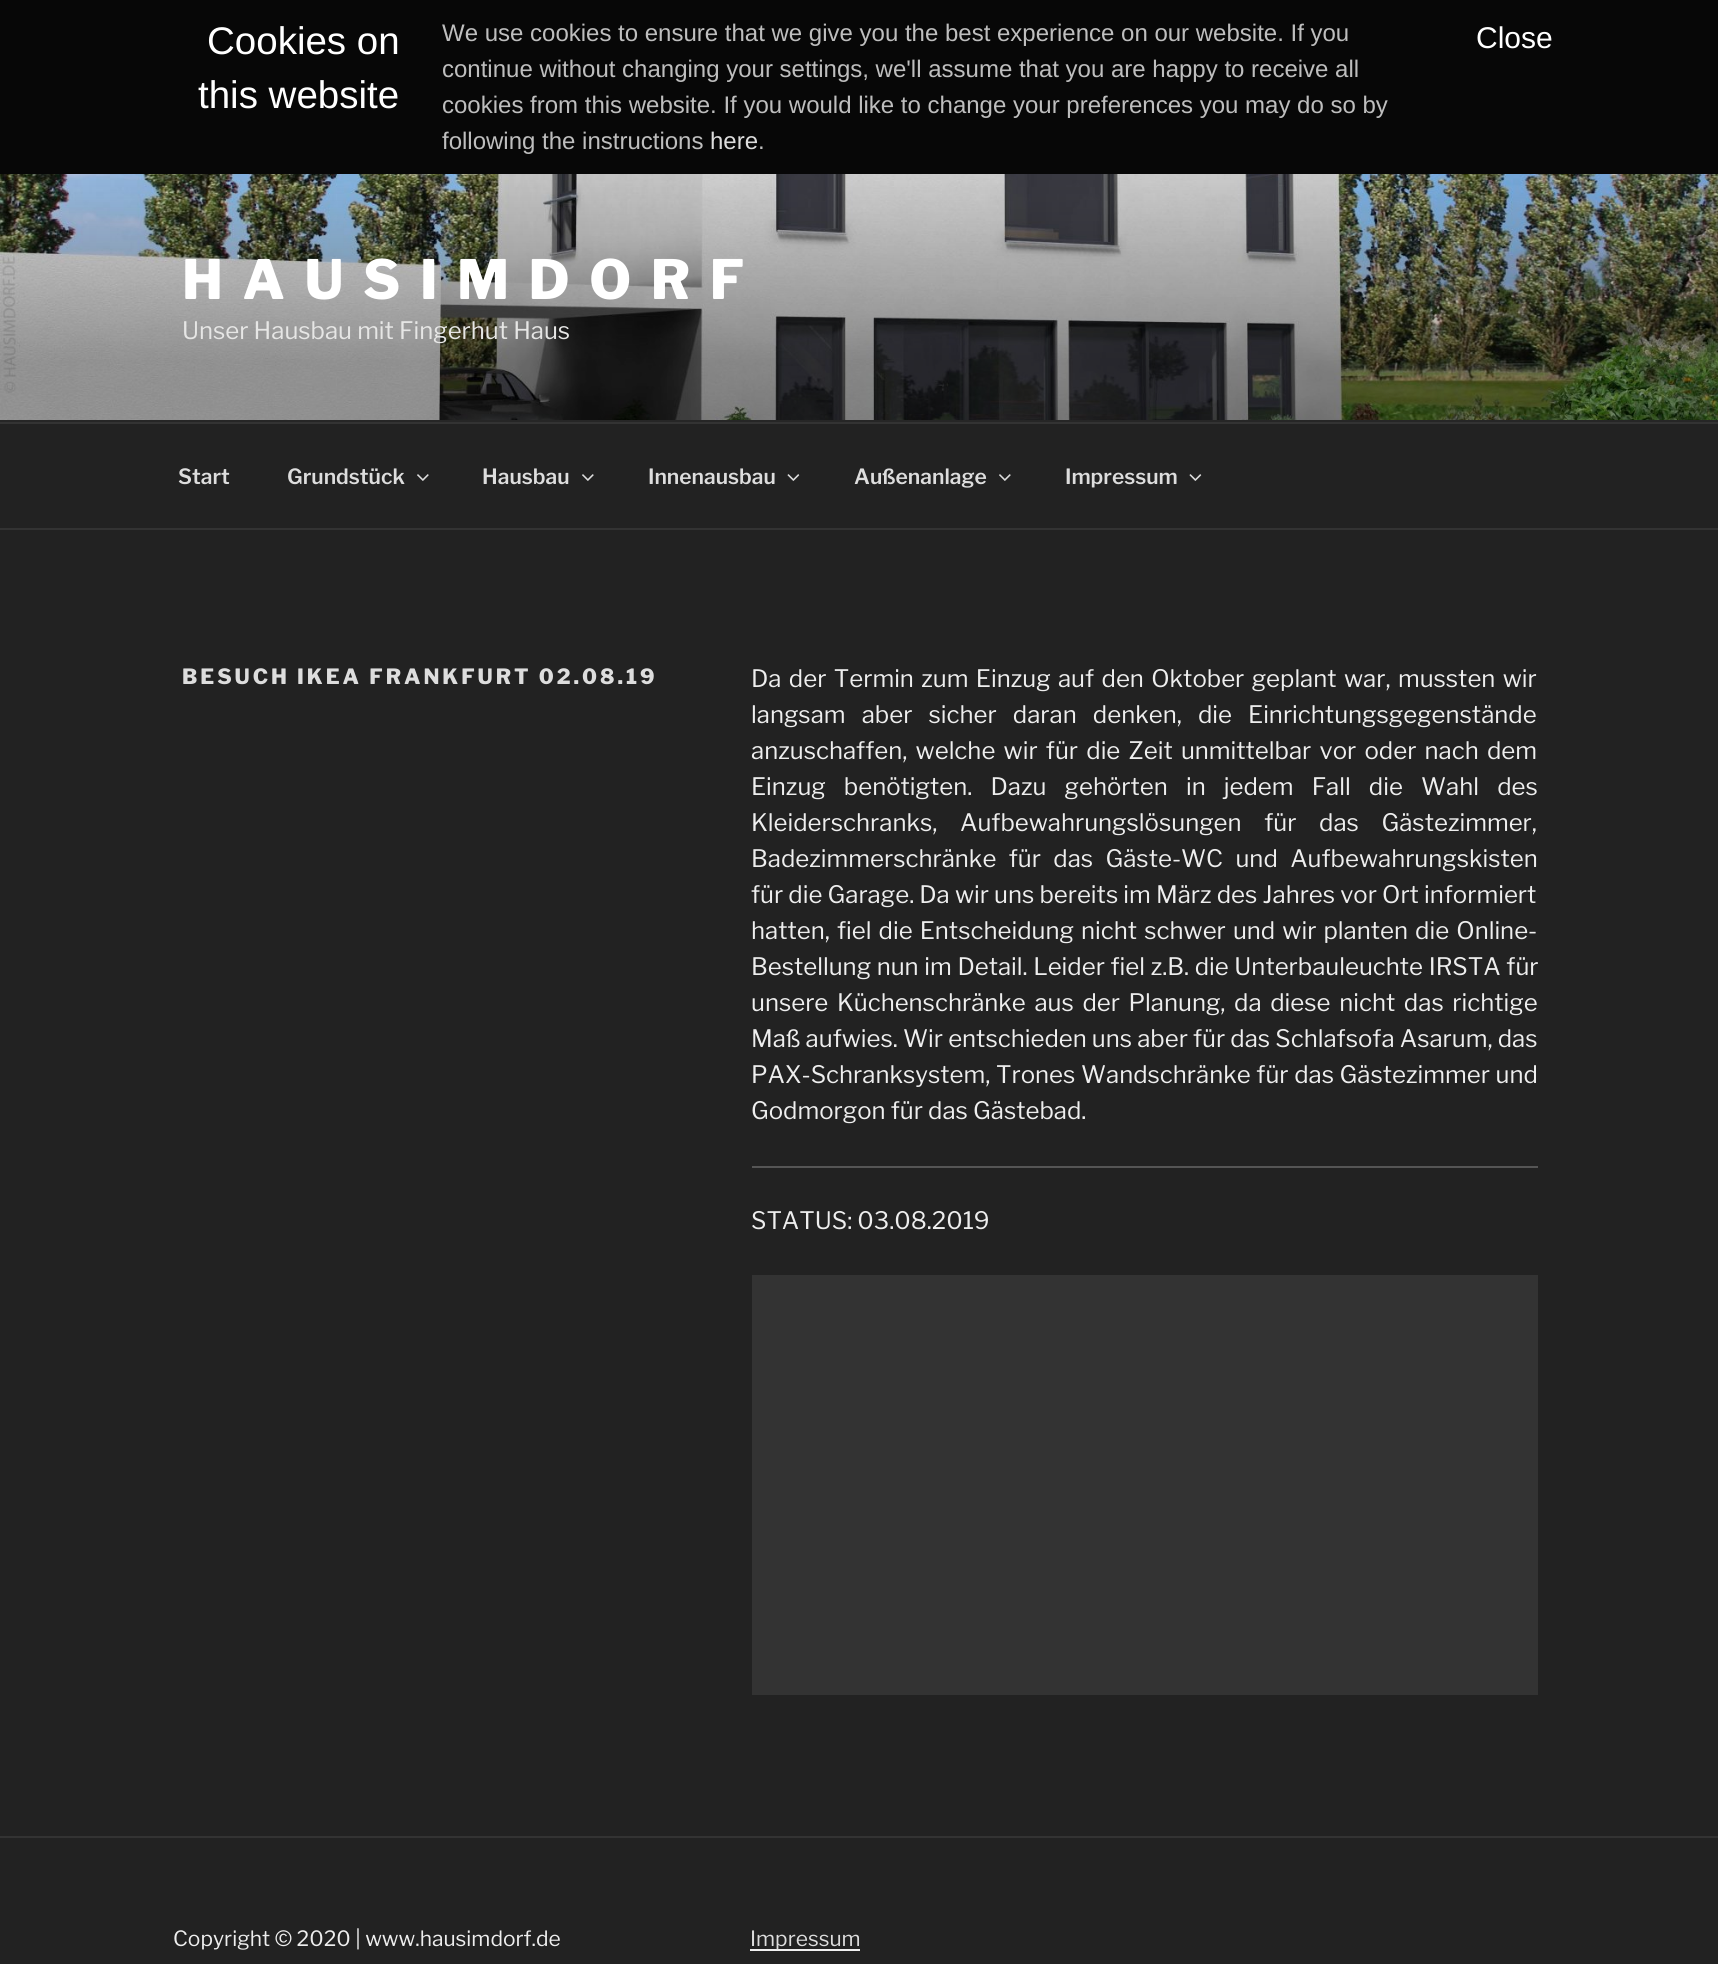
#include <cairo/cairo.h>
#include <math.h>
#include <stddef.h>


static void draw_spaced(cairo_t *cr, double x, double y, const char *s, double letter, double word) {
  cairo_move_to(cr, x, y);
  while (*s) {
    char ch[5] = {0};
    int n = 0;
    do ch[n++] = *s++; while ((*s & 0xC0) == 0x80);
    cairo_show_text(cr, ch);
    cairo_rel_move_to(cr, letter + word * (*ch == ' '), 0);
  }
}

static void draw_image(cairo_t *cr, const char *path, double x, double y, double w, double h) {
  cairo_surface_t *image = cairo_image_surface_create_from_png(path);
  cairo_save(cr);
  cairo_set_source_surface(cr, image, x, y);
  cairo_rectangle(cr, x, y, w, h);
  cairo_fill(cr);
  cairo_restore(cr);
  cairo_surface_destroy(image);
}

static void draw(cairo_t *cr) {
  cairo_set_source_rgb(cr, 34 / 255.0, 34 / 255.0, 34 / 255.0);
  cairo_paint(cr);
  cairo_set_source_rgb(cr, 7 / 255.0, 7 / 255.0, 7 / 255.0);
  cairo_rectangle(cr, 0, 0, 1718, 174);
  cairo_fill(cr);
  cairo_set_source_rgb(cr, 38 / 255.0, 38 / 255.0, 38 / 255.0);
  cairo_rectangle(cr, 0, 420, 1718, 2);
  cairo_fill(cr);
  draw_image(cr, "images/1.png", 0, 174, 1718, 246);
  cairo_set_source_rgb(cr, 51 / 255.0, 51 / 255.0, 51 / 255.0);
  cairo_rectangle(cr, 0, 422, 1718, 2);
  cairo_fill(cr);
  cairo_rectangle(cr, 0, 528, 1718, 2);
  cairo_fill(cr);
  draw_image(cr, "images/2.png", 417, 474, 12, 7);
  draw_image(cr, "images/2.png", 582, 474, 12, 7);
  draw_image(cr, "images/3.png", 787, 474, 13, 7);
  draw_image(cr, "images/2.png", 999, 474, 12, 7);
  draw_image(cr, "images/3.png", 1189, 474, 13, 7);
  cairo_set_source_rgb(cr, 85 / 255.0, 85 / 255.0, 85 / 255.0);
  cairo_rectangle(cr, 752, 1166, 786, 2);
  cairo_fill(cr);
  cairo_set_source_rgb(cr, 51 / 255.0, 51 / 255.0, 51 / 255.0);
  cairo_rectangle(cr, 752, 1275, 786, 420);
  cairo_fill(cr);
  cairo_rectangle(cr, 0, 1836, 1718, 2);
  cairo_fill(cr);
  cairo_set_source_rgb(cr, 240 / 255.0, 240 / 255.0, 240 / 255.0);
  cairo_rectangle(cr, 750, 1949, 110, 2);
  cairo_fill(cr);
  cairo_select_font_face(cr, "Liberation Sans", CAIRO_FONT_SLANT_NORMAL, CAIRO_FONT_WEIGHT_NORMAL);
  cairo_set_font_size(cr, 38.5);
  cairo_set_source_rgb(cr, 1, 1, 1);
  cairo_move_to(cr, 207, 54);
  cairo_show_text(cr, "Cookies on");
  cairo_move_to(cr, 198, 108);
  cairo_show_text(cr, "this website");
  cairo_set_font_size(cr, 24);
  cairo_set_source_rgb(cr, 190 / 255.0, 190 / 255.0, 190 / 255.0);
  cairo_move_to(cr, 442, 41);
  cairo_show_text(cr, "We use cookies to ensure that we give you the best experience on our website. If you");
  cairo_move_to(cr, 442, 77);
  cairo_show_text(cr, "continue without changing your settings, we'll assume that you are happy to receive all");
  cairo_move_to(cr, 442, 113);
  cairo_show_text(cr, "cookies from this website. If you would like to change your preferences you may do so by");
  cairo_move_to(cr, 442, 149);
  cairo_show_text(cr, "following the instructions");
  cairo_set_source_rgb(cr, 221 / 255.0, 221 / 255.0, 221 / 255.0);
  cairo_move_to(cr, 710, 149);
  cairo_show_text(cr, "here");
  cairo_set_source_rgb(cr, 190 / 255.0, 190 / 255.0, 190 / 255.0);
  cairo_move_to(cr, 758, 149);
  cairo_show_text(cr, ".");
  cairo_set_font_size(cr, 30);
  cairo_set_source_rgb(cr, 1, 1, 1);
  cairo_move_to(cr, 1476, 48);
  cairo_show_text(cr, "Close");
  cairo_select_font_face(cr, "Libre Franklin Thin", CAIRO_FONT_SLANT_NORMAL, CAIRO_FONT_WEIGHT_NORMAL);
  cairo_set_font_size(cr, 54);
  draw_spaced(cr, 182, 299, "H A U S I M D O R F", 4.3, 0);
  cairo_select_font_face(cr, "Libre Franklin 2 Thin", CAIRO_FONT_SLANT_NORMAL, CAIRO_FONT_WEIGHT_NORMAL);
  cairo_set_font_size(cr, 24);
  cairo_set_source_rgb(cr, 230 / 255.0, 230 / 255.0, 229 / 255.0);
  cairo_move_to(cr, 182, 339);
  cairo_show_text(cr, "Unser Hausbau mit Fingerhut Haus");
  cairo_select_font_face(cr, "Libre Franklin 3 Thin", CAIRO_FONT_SLANT_NORMAL, CAIRO_FONT_WEIGHT_NORMAL);
  cairo_set_font_size(cr, 21);
  cairo_set_source_rgb(cr, 221 / 255.0, 221 / 255.0, 221 / 255.0);
  cairo_move_to(cr, 178, 484);
  cairo_show_text(cr, "Start");
  cairo_move_to(cr, 287, 484);
  cairo_show_text(cr, "Grundstück");
  cairo_move_to(cr, 482, 484);
  cairo_show_text(cr, "Hausbau");
  cairo_move_to(cr, 648, 484);
  cairo_show_text(cr, "Innenausbau");
  cairo_move_to(cr, 854, 484);
  cairo_show_text(cr, "Außenanlage");
  cairo_move_to(cr, 1065, 484);
  cairo_show_text(cr, "Impressum");
  cairo_select_font_face(cr, "Libre Franklin Thin", CAIRO_FONT_SLANT_NORMAL, CAIRO_FONT_WEIGHT_NORMAL);
  draw_spaced(cr, 182, 684, "BESUCH IKEA FRANKFURT 02.08.19", 2.95, 0);
  cairo_select_font_face(cr, "Libre Franklin 2 Thin", CAIRO_FONT_SLANT_NORMAL, CAIRO_FONT_WEIGHT_NORMAL);
  cairo_set_font_size(cr, 24);
  cairo_set_source_rgb(cr, 238 / 255.0, 238 / 255.0, 238 / 255.0);
  draw_spaced(cr, 751, 687, "Da der Termin zum Einzug auf den Oktober geplant war, mussten wir", 0, 2.25);
  draw_spaced(cr, 751, 723, "langsam aber sicher daran denken, die Einrichtungsgegenstände", 0, 11);
  draw_spaced(cr, 751, 759, "anzuschaffen, welche wir für die Zeit unmittelbar vor oder nach dem", 0, 3.1);
  draw_spaced(cr, 751, 795, "Einzug benötigten. Dazu gehörten in jedem Fall die Wahl des", 0, 13);
  draw_spaced(cr, 751, 831, "Kleiderschranks, Aufbewahrungslösungen für das Gästezimmer,", 0, 17.5);
  draw_spaced(cr, 751, 867, "Badezimmerschränke für das Gäste-WC und Aufbewahrungskisten", 0, 7.25);
  cairo_move_to(cr, 751, 903);
  cairo_show_text(cr, "für die Garage. Da wir uns bereits im März des Jahres vor Ort informiert");
  draw_spaced(cr, 751, 939, "hatten, fiel die Entscheidung nicht schwer und wir planten die Online-", 0, 2);
  draw_spaced(cr, 751, 975, "Bestellung nun im Detail. Leider fiel z.B. die Unterbauleuchte IRSTA für", 0, 0.5);
  draw_spaced(cr, 751, 1011, "unsere Küchenschränke aus der Planung, da diese nicht das richtige", 0, 3.5);
  cairo_move_to(cr, 751, 1047);
  cairo_show_text(cr, "Maß aufwies. Wir entschieden uns aber für das Schlafsofa Asarum, das");
  draw_spaced(cr, 751, 1083, "PAX-Schranksystem, Trones Wandschränke für das Gästezimmer und", 0, 0.5);
  cairo_move_to(cr, 751, 1119);
  cairo_show_text(cr, "Godmorgon für das Gästebad.");
  cairo_move_to(cr, 751, 1229);
  cairo_show_text(cr, "STATUS: 03.08.2019");
  cairo_set_font_size(cr, 21);
  cairo_move_to(cr, 173, 1946);
  cairo_show_text(cr, "Copyright © 2020 | www.hausimdorf.de");
  cairo_set_source_rgb(cr, 221 / 255.0, 221 / 255.0, 221 / 255.0);
  cairo_move_to(cr, 750, 1946);
  cairo_show_text(cr, "Impressum");
}

int main(void) {
  cairo_surface_t *surface = cairo_image_surface_create(CAIRO_FORMAT_RGB24, 1718, 1964);
  cairo_t *cr = cairo_create(surface);
  cairo_font_options_t *options = cairo_font_options_create();
  cairo_font_options_set_hint_metrics(options, CAIRO_HINT_METRICS_OFF);
  cairo_font_options_set_hint_style(options, CAIRO_HINT_STYLE_NONE);
  cairo_set_font_options(cr, options);
  cairo_set_miter_limit(cr, 4);
  draw(cr);
  cairo_surface_write_to_png(surface, "out.png");
  cairo_font_options_destroy(options);
  cairo_destroy(cr);
  cairo_surface_destroy(surface);
  return 0;
}
